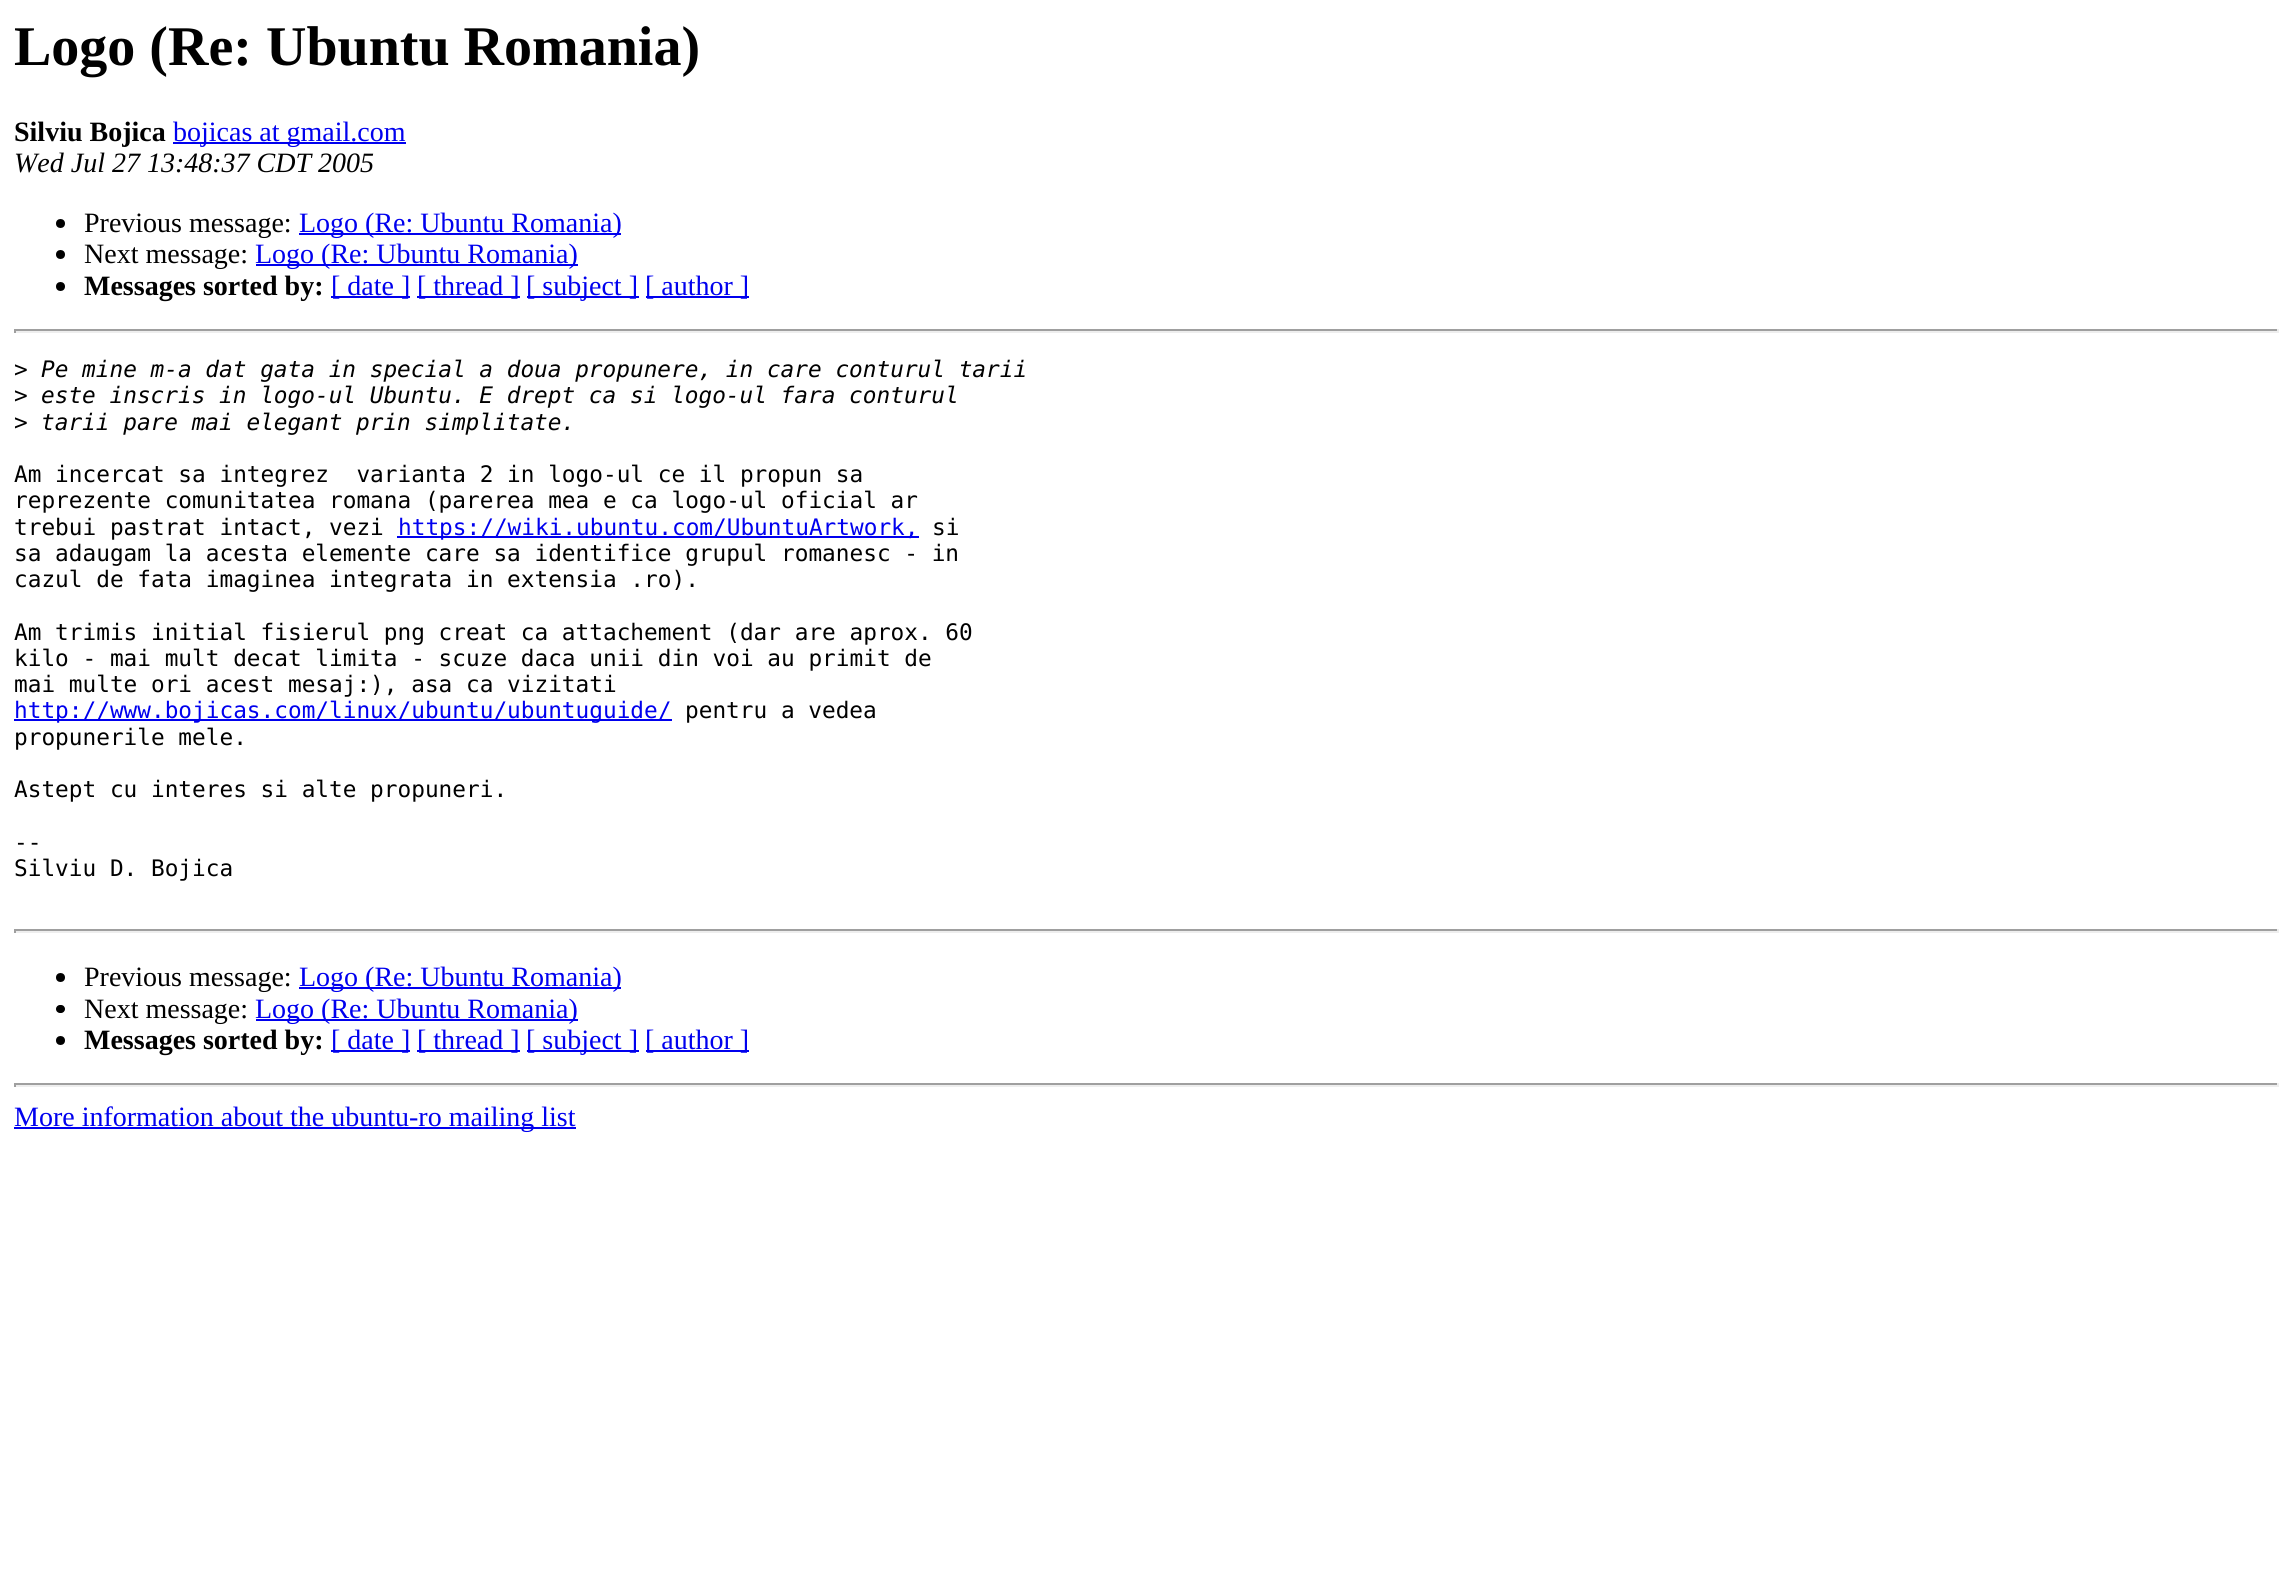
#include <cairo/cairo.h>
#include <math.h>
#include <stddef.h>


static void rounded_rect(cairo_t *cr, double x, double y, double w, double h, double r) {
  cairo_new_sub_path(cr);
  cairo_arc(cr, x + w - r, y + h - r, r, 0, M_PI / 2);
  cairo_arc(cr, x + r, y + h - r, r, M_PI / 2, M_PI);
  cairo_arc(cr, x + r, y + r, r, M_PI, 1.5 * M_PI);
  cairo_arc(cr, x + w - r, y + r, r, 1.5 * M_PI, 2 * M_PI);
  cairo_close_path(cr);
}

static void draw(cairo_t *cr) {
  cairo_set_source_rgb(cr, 1, 1, 1);
  cairo_paint(cr);
  cairo_set_source_rgb(cr, 0, 0, 238 / 255.0);
  cairo_rectangle(cr, 173, 142, 233, 2);
  cairo_fill(cr);
  cairo_set_source_rgb(cr, 0, 0, 0);
  cairo_arc(cr, 60.5, 223.5, 4.5, 0, 2 * M_PI);
  cairo_fill(cr);
  cairo_set_source_rgb(cr, 0, 0, 238 / 255.0);
  cairo_rectangle(cr, 299, 233, 322, 2);
  cairo_fill(cr);
  cairo_set_source_rgb(cr, 0, 0, 0);
  cairo_arc(cr, 60.5, 254.5, 4.5, 0, 2 * M_PI);
  cairo_fill(cr);
  cairo_set_source_rgb(cr, 0, 0, 238 / 255.0);
  cairo_rectangle(cr, 256, 264, 322, 2);
  cairo_fill(cr);
  cairo_set_source_rgb(cr, 0, 0, 0);
  cairo_arc(cr, 60.5, 286.5, 4.5, 0, 2 * M_PI);
  cairo_fill(cr);
  cairo_set_source_rgb(cr, 0, 0, 238 / 255.0);
  cairo_rectangle(cr, 331, 296, 79, 2);
  cairo_fill(cr);
  cairo_rectangle(cr, 417, 296, 103, 2);
  cairo_fill(cr);
  cairo_rectangle(cr, 527, 296, 112, 2);
  cairo_fill(cr);
  cairo_rectangle(cr, 646, 296, 103, 2);
  cairo_fill(cr);
  cairo_set_source_rgb(cr, 159 / 255.0, 159 / 255.0, 159 / 255.0);
  cairo_rectangle(cr, 14, 329, 2265, 2);
  cairo_fill(cr);
  cairo_set_source_rgb(cr, 238 / 255.0, 238 / 255.0, 238 / 255.0);
  cairo_rectangle(cr, 2277, 329, 2, 4);
  cairo_fill(cr);
  cairo_rectangle(cr, 14, 331, 2265, 2);
  cairo_fill(cr);
  cairo_set_source_rgb(cr, 159 / 255.0, 159 / 255.0, 159 / 255.0);
  cairo_rectangle(cr, 14, 329, 2, 4);
  cairo_fill(cr);
  cairo_set_source_rgb(cr, 0, 0, 238 / 255.0);
  cairo_rectangle(cr, 397, 536, 522, 2);
  cairo_fill(cr);
  cairo_rectangle(cr, 14, 719, 658, 2);
  cairo_fill(cr);
  cairo_set_source_rgb(cr, 159 / 255.0, 159 / 255.0, 159 / 255.0);
  cairo_rectangle(cr, 14, 929, 2265, 2);
  cairo_fill(cr);
  cairo_set_source_rgb(cr, 238 / 255.0, 238 / 255.0, 238 / 255.0);
  cairo_rectangle(cr, 2277, 929, 2, 4);
  cairo_fill(cr);
  cairo_rectangle(cr, 14, 931, 2265, 2);
  cairo_fill(cr);
  cairo_set_source_rgb(cr, 159 / 255.0, 159 / 255.0, 159 / 255.0);
  cairo_rectangle(cr, 14, 929, 2, 4);
  cairo_fill(cr);
  cairo_set_source_rgb(cr, 0, 0, 0);
  cairo_arc(cr, 60.5, 977.5, 4.5, 0, 2 * M_PI);
  cairo_fill(cr);
  cairo_set_source_rgb(cr, 0, 0, 238 / 255.0);
  cairo_rectangle(cr, 299, 987, 322, 2);
  cairo_fill(cr);
  cairo_set_source_rgb(cr, 0, 0, 0);
  rounded_rect(cr, 56, 1005, 9, 8, 4);
  cairo_fill(cr);
  cairo_set_source_rgb(cr, 0, 0, 238 / 255.0);
  cairo_rectangle(cr, 256, 1019, 322, 2);
  cairo_fill(cr);
  cairo_set_source_rgb(cr, 0, 0, 0);
  cairo_arc(cr, 60.5, 1040.5, 4.5, 0, 2 * M_PI);
  cairo_fill(cr);
  cairo_set_source_rgb(cr, 0, 0, 238 / 255.0);
  cairo_rectangle(cr, 331, 1050, 79, 2);
  cairo_fill(cr);
  cairo_rectangle(cr, 417, 1050, 103, 2);
  cairo_fill(cr);
  cairo_rectangle(cr, 527, 1050, 112, 2);
  cairo_fill(cr);
  cairo_rectangle(cr, 646, 1050, 103, 2);
  cairo_fill(cr);
  cairo_set_source_rgb(cr, 159 / 255.0, 159 / 255.0, 159 / 255.0);
  cairo_rectangle(cr, 14, 1083, 2265, 2);
  cairo_fill(cr);
  cairo_set_source_rgb(cr, 238 / 255.0, 238 / 255.0, 238 / 255.0);
  cairo_rectangle(cr, 2277, 1083, 2, 4);
  cairo_fill(cr);
  cairo_rectangle(cr, 14, 1085, 2265, 2);
  cairo_fill(cr);
  cairo_set_source_rgb(cr, 159 / 255.0, 159 / 255.0, 159 / 255.0);
  cairo_rectangle(cr, 14, 1083, 2, 4);
  cairo_fill(cr);
  cairo_set_source_rgb(cr, 0, 0, 238 / 255.0);
  cairo_rectangle(cr, 14, 1127, 562, 2);
  cairo_fill(cr);
  cairo_select_font_face(cr, "Liberation Serif", CAIRO_FONT_SLANT_NORMAL, CAIRO_FONT_WEIGHT_BOLD);
  cairo_set_font_size(cr, 56);
  cairo_set_source_rgb(cr, 0, 0, 0);
  cairo_move_to(cr, 14, 65);
  cairo_show_text(cr, "Logo (Re: Ubuntu Romania)");
  cairo_set_font_size(cr, 28);
  cairo_move_to(cr, 14, 141);
  cairo_show_text(cr, "Silviu Bojica");
  cairo_select_font_face(cr, "Liberation Serif", CAIRO_FONT_SLANT_NORMAL, CAIRO_FONT_WEIGHT_NORMAL);
  cairo_set_source_rgb(cr, 0, 0, 238 / 255.0);
  cairo_move_to(cr, 173, 141);
  cairo_show_text(cr, "bojicas at gmail.com");
  cairo_select_font_face(cr, "Liberation Serif", CAIRO_FONT_SLANT_ITALIC, CAIRO_FONT_WEIGHT_NORMAL);
  cairo_set_source_rgb(cr, 0, 0, 0);
  cairo_move_to(cr, 14, 172);
  cairo_show_text(cr, "Wed Jul 27 13:48:37 CDT 2005");
  cairo_select_font_face(cr, "Liberation Serif", CAIRO_FONT_SLANT_NORMAL, CAIRO_FONT_WEIGHT_NORMAL);
  cairo_move_to(cr, 84, 232);
  cairo_show_text(cr, "Previous message:");
  cairo_set_source_rgb(cr, 0, 0, 238 / 255.0);
  cairo_move_to(cr, 299, 232);
  cairo_show_text(cr, "Logo (Re: Ubuntu Romania)");
  cairo_set_source_rgb(cr, 0, 0, 0);
  cairo_move_to(cr, 84, 263);
  cairo_show_text(cr, "Next message:");
  cairo_set_source_rgb(cr, 0, 0, 238 / 255.0);
  cairo_move_to(cr, 255, 263);
  cairo_show_text(cr, "Logo (Re: Ubuntu Romania)");
  cairo_select_font_face(cr, "Liberation Serif", CAIRO_FONT_SLANT_NORMAL, CAIRO_FONT_WEIGHT_BOLD);
  cairo_set_source_rgb(cr, 0, 0, 0);
  cairo_move_to(cr, 84, 295);
  cairo_show_text(cr, "Messages sorted by:");
  cairo_select_font_face(cr, "Liberation Serif", CAIRO_FONT_SLANT_NORMAL, CAIRO_FONT_WEIGHT_NORMAL);
  cairo_set_source_rgb(cr, 0, 0, 238 / 255.0);
  cairo_move_to(cr, 331, 295);
  cairo_show_text(cr, "[ date ]");
  cairo_move_to(cr, 417, 295);
  cairo_show_text(cr, "[ thread ]");
  cairo_move_to(cr, 526, 295);
  cairo_show_text(cr, "[ subject ]");
  cairo_move_to(cr, 645, 295);
  cairo_show_text(cr, "[ author ]");
  cairo_select_font_face(cr, "DejaVu Sans Mono", CAIRO_FONT_SLANT_NORMAL, CAIRO_FONT_WEIGHT_NORMAL);
  cairo_set_font_size(cr, 22.75);
  cairo_set_source_rgb(cr, 0, 0, 0);
  cairo_move_to(cr, 14, 377);
  cairo_show_text(cr, ">");
  cairo_select_font_face(cr, "DejaVu Sans Mono", CAIRO_FONT_SLANT_ITALIC, CAIRO_FONT_WEIGHT_NORMAL);
  cairo_move_to(cr, 41, 377);
  cairo_show_text(cr, "Pe mine m-a dat gata in special a doua propunere, in care conturul tarii");
  cairo_select_font_face(cr, "DejaVu Sans Mono", CAIRO_FONT_SLANT_NORMAL, CAIRO_FONT_WEIGHT_NORMAL);
  cairo_move_to(cr, 14, 403);
  cairo_show_text(cr, ">");
  cairo_select_font_face(cr, "DejaVu Sans Mono", CAIRO_FONT_SLANT_ITALIC, CAIRO_FONT_WEIGHT_NORMAL);
  cairo_move_to(cr, 41, 403);
  cairo_show_text(cr, "este inscris in logo-ul Ubuntu. E drept ca si logo-ul fara conturul");
  cairo_select_font_face(cr, "DejaVu Sans Mono", CAIRO_FONT_SLANT_NORMAL, CAIRO_FONT_WEIGHT_NORMAL);
  cairo_move_to(cr, 14, 430);
  cairo_show_text(cr, ">");
  cairo_select_font_face(cr, "DejaVu Sans Mono", CAIRO_FONT_SLANT_ITALIC, CAIRO_FONT_WEIGHT_NORMAL);
  cairo_move_to(cr, 41, 430);
  cairo_show_text(cr, "tarii pare mai elegant prin simplitate.");
  cairo_select_font_face(cr, "DejaVu Sans Mono", CAIRO_FONT_SLANT_NORMAL, CAIRO_FONT_WEIGHT_NORMAL);
  cairo_move_to(cr, 14, 482);
  cairo_show_text(cr, "Am incercat sa integrez  varianta 2 in logo-ul ce il propun sa");
  cairo_move_to(cr, 14, 508);
  cairo_show_text(cr, "reprezente comunitatea romana (parerea mea e ca logo-ul oficial ar");
  cairo_move_to(cr, 14, 535);
  cairo_show_text(cr, "trebui pastrat intact, vezi");
  cairo_set_source_rgb(cr, 0, 0, 238 / 255.0);
  cairo_move_to(cr, 398, 535);
  cairo_show_text(cr, "https://wiki.ubuntu.com/UbuntuArtwork,");
  cairo_set_source_rgb(cr, 0, 0, 0);
  cairo_move_to(cr, 932, 535);
  cairo_show_text(cr, "si");
  cairo_move_to(cr, 14, 561);
  cairo_show_text(cr, "sa adaugam la acesta elemente care sa identifice grupul romanesc - in");
  cairo_move_to(cr, 14, 587);
  cairo_show_text(cr, "cazul de fata imaginea integrata in extensia .ro).");
  cairo_move_to(cr, 14, 640);
  cairo_show_text(cr, "Am trimis initial fisierul png creat ca attachement (dar are aprox. 60");
  cairo_move_to(cr, 14, 666);
  cairo_show_text(cr, "kilo - mai mult decat limita - scuze daca unii din voi au primit de");
  cairo_move_to(cr, 14, 692);
  cairo_show_text(cr, "mai multe ori acest mesaj:), asa ca vizitati");
  cairo_set_source_rgb(cr, 0, 0, 238 / 255.0);
  cairo_move_to(cr, 14, 718);
  cairo_show_text(cr, "http://www.bojicas.com/linux/ubuntu/ubuntuguide/");
  cairo_set_source_rgb(cr, 0, 0, 0);
  cairo_move_to(cr, 685, 718);
  cairo_show_text(cr, "pentru a vedea");
  cairo_move_to(cr, 14, 745);
  cairo_show_text(cr, "propunerile mele.");
  cairo_move_to(cr, 14, 797);
  cairo_show_text(cr, "Astept cu interes si alte propuneri.");
  cairo_move_to(cr, 14, 850);
  cairo_show_text(cr, "--");
  cairo_move_to(cr, 14, 876);
  cairo_show_text(cr, "Silviu D. Bojica");
  cairo_select_font_face(cr, "Liberation Serif", CAIRO_FONT_SLANT_NORMAL, CAIRO_FONT_WEIGHT_NORMAL);
  cairo_set_font_size(cr, 28);
  cairo_move_to(cr, 84, 986);
  cairo_show_text(cr, "Previous message:");
  cairo_set_source_rgb(cr, 0, 0, 238 / 255.0);
  cairo_move_to(cr, 299, 986);
  cairo_show_text(cr, "Logo (Re: Ubuntu Romania)");
  cairo_set_source_rgb(cr, 0, 0, 0);
  cairo_move_to(cr, 84, 1018);
  cairo_show_text(cr, "Next message:");
  cairo_set_source_rgb(cr, 0, 0, 238 / 255.0);
  cairo_move_to(cr, 255, 1018);
  cairo_show_text(cr, "Logo (Re: Ubuntu Romania)");
  cairo_select_font_face(cr, "Liberation Serif", CAIRO_FONT_SLANT_NORMAL, CAIRO_FONT_WEIGHT_BOLD);
  cairo_set_source_rgb(cr, 0, 0, 0);
  cairo_move_to(cr, 84, 1049);
  cairo_show_text(cr, "Messages sorted by:");
  cairo_select_font_face(cr, "Liberation Serif", CAIRO_FONT_SLANT_NORMAL, CAIRO_FONT_WEIGHT_NORMAL);
  cairo_set_source_rgb(cr, 0, 0, 238 / 255.0);
  cairo_move_to(cr, 331, 1049);
  cairo_show_text(cr, "[ date ]");
  cairo_move_to(cr, 417, 1049);
  cairo_show_text(cr, "[ thread ]");
  cairo_move_to(cr, 526, 1049);
  cairo_show_text(cr, "[ subject ]");
  cairo_move_to(cr, 645, 1049);
  cairo_show_text(cr, "[ author ]");
  cairo_move_to(cr, 14, 1126);
  cairo_show_text(cr, "More information about the ubuntu-ro mailing list");
}

int main(void) {
  cairo_surface_t *surface = cairo_image_surface_create(CAIRO_FORMAT_RGB24, 2292, 1579);
  cairo_t *cr = cairo_create(surface);
  cairo_font_options_t *options = cairo_font_options_create();
  cairo_font_options_set_hint_metrics(options, CAIRO_HINT_METRICS_OFF);
  cairo_font_options_set_hint_style(options, CAIRO_HINT_STYLE_NONE);
  cairo_set_font_options(cr, options);
  cairo_set_miter_limit(cr, 4);
  draw(cr);
  cairo_surface_write_to_png(surface, "out.png");
  cairo_font_options_destroy(options);
  cairo_destroy(cr);
  cairo_surface_destroy(surface);
  return 0;
}
